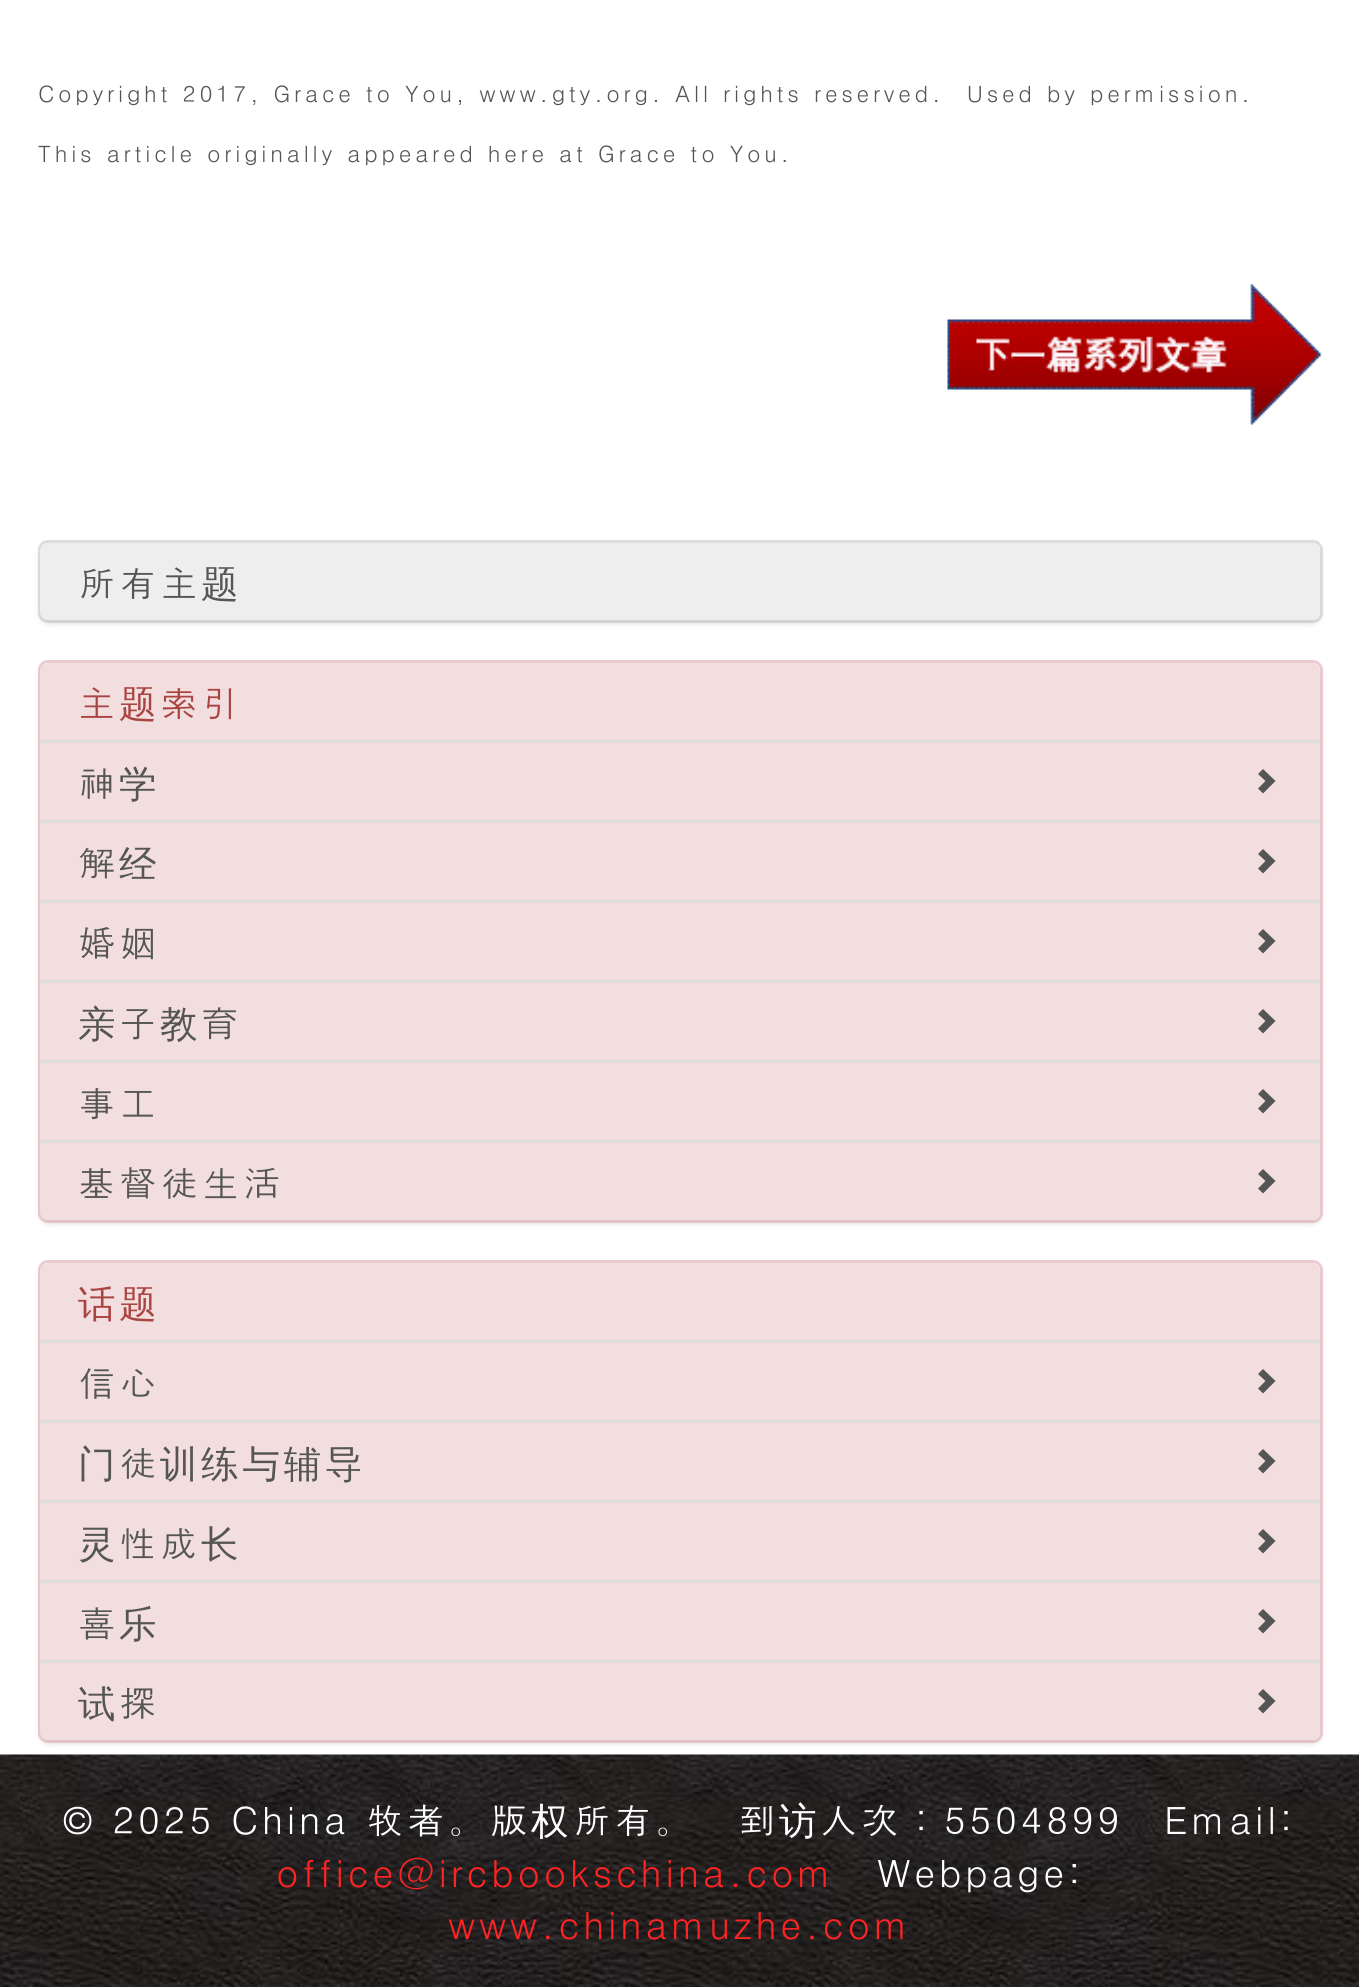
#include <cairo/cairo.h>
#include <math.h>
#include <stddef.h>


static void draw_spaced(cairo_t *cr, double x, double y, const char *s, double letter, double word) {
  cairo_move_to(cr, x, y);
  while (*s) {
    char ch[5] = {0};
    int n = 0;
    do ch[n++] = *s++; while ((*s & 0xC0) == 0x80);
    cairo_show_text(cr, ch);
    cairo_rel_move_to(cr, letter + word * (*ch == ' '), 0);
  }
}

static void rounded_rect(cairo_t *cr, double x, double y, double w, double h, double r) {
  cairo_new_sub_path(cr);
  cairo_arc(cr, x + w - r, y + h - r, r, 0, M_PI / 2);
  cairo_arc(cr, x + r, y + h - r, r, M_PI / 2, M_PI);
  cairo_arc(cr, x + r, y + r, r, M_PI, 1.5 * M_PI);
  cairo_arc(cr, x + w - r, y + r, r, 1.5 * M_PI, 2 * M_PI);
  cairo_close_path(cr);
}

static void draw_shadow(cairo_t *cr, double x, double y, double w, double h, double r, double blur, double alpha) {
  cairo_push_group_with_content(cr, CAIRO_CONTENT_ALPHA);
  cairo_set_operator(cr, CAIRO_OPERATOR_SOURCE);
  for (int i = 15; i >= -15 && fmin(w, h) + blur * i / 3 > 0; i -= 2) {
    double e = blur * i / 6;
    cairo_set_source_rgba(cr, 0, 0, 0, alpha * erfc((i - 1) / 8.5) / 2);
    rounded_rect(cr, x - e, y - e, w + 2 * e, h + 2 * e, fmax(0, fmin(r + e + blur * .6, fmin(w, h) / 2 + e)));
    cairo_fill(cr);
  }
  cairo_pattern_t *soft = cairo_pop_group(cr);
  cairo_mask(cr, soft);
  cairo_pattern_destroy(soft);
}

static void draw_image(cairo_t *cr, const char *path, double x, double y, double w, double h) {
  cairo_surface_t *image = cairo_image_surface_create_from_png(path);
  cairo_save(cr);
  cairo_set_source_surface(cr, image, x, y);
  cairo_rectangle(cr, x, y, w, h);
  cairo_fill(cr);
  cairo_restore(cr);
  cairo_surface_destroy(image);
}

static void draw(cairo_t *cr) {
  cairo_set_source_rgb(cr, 1, 1, 1);
  cairo_paint(cr);
  draw_image(cr, "images/1.png", 947, 284, 375, 141);
  cairo_set_source_rgb(cr, 0, 0, 0);
  draw_shadow(cr, 38, 543, 1285, 82, 10, 2.5, 0.05);
  cairo_set_source_rgb(cr, 1, 1, 1);
  rounded_rect(cr, 39.5, 541.5, 1282, 80, 8.5);
  cairo_fill_preserve(cr);
  cairo_set_source_rgb(cr, 221 / 255.0, 221 / 255.0, 221 / 255.0);
  cairo_set_line_width(cr, 3);
  cairo_stroke(cr);
  cairo_set_source_rgb(cr, 0, 0, 0);
  draw_shadow(cr, 40, 545, 1280, 78, 10, 2.5, 0.07);
  cairo_set_source_rgb(cr, 238 / 255.0, 238 / 255.0, 238 / 255.0);
  rounded_rect(cr, 40, 543, 1280, 77, 8);
  cairo_fill(cr);
  cairo_set_source_rgb(cr, 0, 0, 0);
  draw_shadow(cr, 38, 663, 1285, 562, 10, 2.5, 0.05);
  cairo_set_source_rgb(cr, 1, 1, 1);
  rounded_rect(cr, 39.5, 661.5, 1282, 560, 8.5);
  cairo_fill_preserve(cr);
  cairo_set_source_rgb(cr, 235 / 255.0, 204 / 255.0, 209 / 255.0);
  cairo_stroke(cr);
  cairo_set_source_rgb(cr, 0, 0, 0);
  draw_shadow(cr, 40, 665, 1280, 558, 10, 2.5, 0.07);
  cairo_set_source_rgb(cr, 242 / 255.0, 222 / 255.0, 222 / 255.0);
  cairo_new_path(cr);
  cairo_move_to(cr, 48, 663);
  cairo_line_to(cr, 1312, 663);
  cairo_curve_to(cr, 1316.5, 663, 1320, 666.5, 1320, 671);
  cairo_line_to(cr, 1320, 743);
  cairo_line_to(cr, 40, 743);
  cairo_line_to(cr, 40, 671);
  cairo_curve_to(cr, 40, 666.5, 43.5, 663, 48, 663);
  cairo_close_path(cr);
  cairo_fill(cr);
  cairo_set_source_rgb(cr, 221 / 255.0, 221 / 255.0, 221 / 255.0);
  cairo_rectangle(cr, 40, 740, 1280, 3);
  cairo_fill(cr);
  cairo_set_source_rgb(cr, 242 / 255.0, 222 / 255.0, 222 / 255.0);
  cairo_rectangle(cr, 40, 743, 1280, 77);
  cairo_fill(cr);
  cairo_set_source_rgb(cr, 221 / 255.0, 221 / 255.0, 221 / 255.0);
  cairo_rectangle(cr, 40, 820, 1280, 3);
  cairo_fill(cr);
  cairo_set_source_rgb(cr, 85 / 255.0, 85 / 255.0, 85 / 255.0);
  cairo_new_path(cr);
  cairo_move_to(cr, 1258, 788.5);
  cairo_line_to(cr, 1265.5, 781);
  cairo_line_to(cr, 1258, 774);
  cairo_line_to(cr, 1263, 769);
  cairo_line_to(cr, 1275.5, 781);
  cairo_line_to(cr, 1263, 793.5);
  cairo_close_path(cr);
  cairo_fill(cr);
  cairo_set_source_rgb(cr, 242 / 255.0, 222 / 255.0, 222 / 255.0);
  cairo_rectangle(cr, 40, 823, 1280, 77);
  cairo_fill(cr);
  cairo_set_source_rgb(cr, 221 / 255.0, 221 / 255.0, 221 / 255.0);
  cairo_rectangle(cr, 40, 900, 1280, 3);
  cairo_fill(cr);
  cairo_set_source_rgb(cr, 85 / 255.0, 85 / 255.0, 85 / 255.0);
  cairo_new_path(cr);
  cairo_move_to(cr, 1258, 868.5);
  cairo_line_to(cr, 1265.5, 861);
  cairo_line_to(cr, 1258, 854);
  cairo_line_to(cr, 1263, 849);
  cairo_line_to(cr, 1275.5, 861);
  cairo_line_to(cr, 1263, 873.5);
  cairo_close_path(cr);
  cairo_fill(cr);
  cairo_set_source_rgb(cr, 242 / 255.0, 222 / 255.0, 222 / 255.0);
  cairo_rectangle(cr, 40, 903, 1280, 77);
  cairo_fill(cr);
  cairo_set_source_rgb(cr, 221 / 255.0, 221 / 255.0, 221 / 255.0);
  cairo_rectangle(cr, 40, 980, 1280, 3);
  cairo_fill(cr);
  cairo_set_source_rgb(cr, 85 / 255.0, 85 / 255.0, 85 / 255.0);
  cairo_new_path(cr);
  cairo_move_to(cr, 1258, 948.5);
  cairo_line_to(cr, 1265.5, 941);
  cairo_line_to(cr, 1258, 934);
  cairo_line_to(cr, 1263, 929);
  cairo_line_to(cr, 1275.5, 941);
  cairo_line_to(cr, 1263, 953.5);
  cairo_close_path(cr);
  cairo_fill(cr);
  cairo_set_source_rgb(cr, 242 / 255.0, 222 / 255.0, 222 / 255.0);
  cairo_rectangle(cr, 40, 983, 1280, 77);
  cairo_fill(cr);
  cairo_set_source_rgb(cr, 221 / 255.0, 221 / 255.0, 221 / 255.0);
  cairo_rectangle(cr, 40, 1060, 1280, 3);
  cairo_fill(cr);
  cairo_set_source_rgb(cr, 85 / 255.0, 85 / 255.0, 85 / 255.0);
  cairo_new_path(cr);
  cairo_move_to(cr, 1258, 1028.5);
  cairo_line_to(cr, 1265.5, 1021);
  cairo_line_to(cr, 1258, 1014);
  cairo_line_to(cr, 1263, 1009);
  cairo_line_to(cr, 1275.5, 1021);
  cairo_line_to(cr, 1263, 1033.5);
  cairo_close_path(cr);
  cairo_fill(cr);
  cairo_set_source_rgb(cr, 242 / 255.0, 222 / 255.0, 222 / 255.0);
  cairo_rectangle(cr, 40, 1063, 1280, 77);
  cairo_fill(cr);
  cairo_set_source_rgb(cr, 85 / 255.0, 85 / 255.0, 85 / 255.0);
  cairo_new_path(cr);
  cairo_move_to(cr, 1258, 1108.5);
  cairo_line_to(cr, 1265.5, 1101);
  cairo_line_to(cr, 1258, 1094);
  cairo_line_to(cr, 1263, 1089);
  cairo_line_to(cr, 1275.5, 1101);
  cairo_line_to(cr, 1263, 1113.5);
  cairo_close_path(cr);
  cairo_fill(cr);
  cairo_set_source_rgb(cr, 242 / 255.0, 222 / 255.0, 222 / 255.0);
  cairo_new_path(cr);
  cairo_move_to(cr, 40, 1140);
  cairo_line_to(cr, 1320, 1140);
  cairo_line_to(cr, 1320, 1212);
  cairo_curve_to(cr, 1320, 1216.5, 1316.5, 1220, 1312, 1220);
  cairo_line_to(cr, 48, 1220);
  cairo_curve_to(cr, 43.5, 1220, 40, 1216.5, 40, 1212);
  cairo_close_path(cr);
  cairo_fill(cr);
  cairo_set_source_rgb(cr, 221 / 255.0, 221 / 255.0, 221 / 255.0);
  cairo_rectangle(cr, 40, 1140, 1280, 3);
  cairo_fill(cr);
  cairo_set_source_rgb(cr, 85 / 255.0, 85 / 255.0, 85 / 255.0);
  cairo_new_path(cr);
  cairo_move_to(cr, 1258, 1188.5);
  cairo_line_to(cr, 1265.5, 1181);
  cairo_line_to(cr, 1258, 1174);
  cairo_line_to(cr, 1263, 1169);
  cairo_line_to(cr, 1275.5, 1181);
  cairo_line_to(cr, 1263, 1193.5);
  cairo_close_path(cr);
  cairo_fill(cr);
  cairo_set_source_rgb(cr, 0, 0, 0);
  draw_shadow(cr, 38, 1263, 1285, 482, 10, 2.5, 0.05);
  cairo_set_source_rgb(cr, 1, 1, 1);
  rounded_rect(cr, 39.5, 1261.5, 1282, 480, 8.5);
  cairo_fill_preserve(cr);
  cairo_set_source_rgb(cr, 235 / 255.0, 204 / 255.0, 209 / 255.0);
  cairo_stroke(cr);
  cairo_set_source_rgb(cr, 0, 0, 0);
  draw_shadow(cr, 40, 1265, 1280, 478, 10, 2.5, 0.07);
  cairo_set_source_rgb(cr, 242 / 255.0, 222 / 255.0, 222 / 255.0);
  cairo_new_path(cr);
  cairo_move_to(cr, 48, 1263);
  cairo_line_to(cr, 1312, 1263);
  cairo_curve_to(cr, 1316.5, 1263, 1320, 1266.5, 1320, 1271);
  cairo_line_to(cr, 1320, 1343);
  cairo_line_to(cr, 40, 1343);
  cairo_line_to(cr, 40, 1271);
  cairo_curve_to(cr, 40, 1266.5, 43.5, 1263, 48, 1263);
  cairo_close_path(cr);
  cairo_fill(cr);
  cairo_set_source_rgb(cr, 221 / 255.0, 221 / 255.0, 221 / 255.0);
  cairo_rectangle(cr, 40, 1340, 1280, 3);
  cairo_fill(cr);
  cairo_set_source_rgb(cr, 242 / 255.0, 222 / 255.0, 222 / 255.0);
  cairo_rectangle(cr, 40, 1343, 1280, 77);
  cairo_fill(cr);
  cairo_set_source_rgb(cr, 221 / 255.0, 221 / 255.0, 221 / 255.0);
  cairo_rectangle(cr, 40, 1420, 1280, 3);
  cairo_fill(cr);
  cairo_set_source_rgb(cr, 85 / 255.0, 85 / 255.0, 85 / 255.0);
  cairo_new_path(cr);
  cairo_move_to(cr, 1258, 1388.5);
  cairo_line_to(cr, 1265.5, 1381);
  cairo_line_to(cr, 1258, 1374);
  cairo_line_to(cr, 1263, 1369);
  cairo_line_to(cr, 1275.5, 1381);
  cairo_line_to(cr, 1263, 1393.5);
  cairo_close_path(cr);
  cairo_fill(cr);
  cairo_set_source_rgb(cr, 242 / 255.0, 222 / 255.0, 222 / 255.0);
  cairo_rectangle(cr, 40, 1423, 1280, 77);
  cairo_fill(cr);
  cairo_set_source_rgb(cr, 221 / 255.0, 221 / 255.0, 221 / 255.0);
  cairo_rectangle(cr, 40, 1500, 1280, 3);
  cairo_fill(cr);
  cairo_set_source_rgb(cr, 85 / 255.0, 85 / 255.0, 85 / 255.0);
  cairo_new_path(cr);
  cairo_move_to(cr, 1258, 1468.5);
  cairo_line_to(cr, 1265.5, 1461);
  cairo_line_to(cr, 1258, 1454);
  cairo_line_to(cr, 1263, 1449);
  cairo_line_to(cr, 1275.5, 1461);
  cairo_line_to(cr, 1263, 1473.5);
  cairo_close_path(cr);
  cairo_fill(cr);
  cairo_set_source_rgb(cr, 242 / 255.0, 222 / 255.0, 222 / 255.0);
  cairo_rectangle(cr, 40, 1503, 1280, 77);
  cairo_fill(cr);
  cairo_set_source_rgb(cr, 221 / 255.0, 221 / 255.0, 221 / 255.0);
  cairo_rectangle(cr, 40, 1580, 1280, 3);
  cairo_fill(cr);
  cairo_set_source_rgb(cr, 85 / 255.0, 85 / 255.0, 85 / 255.0);
  cairo_new_path(cr);
  cairo_move_to(cr, 1258, 1548.5);
  cairo_line_to(cr, 1265.5, 1541);
  cairo_line_to(cr, 1258, 1534);
  cairo_line_to(cr, 1263, 1529);
  cairo_line_to(cr, 1275.5, 1541);
  cairo_line_to(cr, 1263, 1553.5);
  cairo_close_path(cr);
  cairo_fill(cr);
  cairo_set_source_rgb(cr, 242 / 255.0, 222 / 255.0, 222 / 255.0);
  cairo_rectangle(cr, 40, 1583, 1280, 77);
  cairo_fill(cr);
  cairo_set_source_rgb(cr, 85 / 255.0, 85 / 255.0, 85 / 255.0);
  cairo_new_path(cr);
  cairo_move_to(cr, 1258, 1628.5);
  cairo_line_to(cr, 1265.5, 1621);
  cairo_line_to(cr, 1258, 1614);
  cairo_line_to(cr, 1263, 1609);
  cairo_line_to(cr, 1275.5, 1621);
  cairo_line_to(cr, 1263, 1633.5);
  cairo_close_path(cr);
  cairo_fill(cr);
  cairo_set_source_rgb(cr, 242 / 255.0, 222 / 255.0, 222 / 255.0);
  cairo_new_path(cr);
  cairo_move_to(cr, 40, 1660);
  cairo_line_to(cr, 1320, 1660);
  cairo_line_to(cr, 1320, 1732);
  cairo_curve_to(cr, 1320, 1736.5, 1316.5, 1740, 1312, 1740);
  cairo_line_to(cr, 48, 1740);
  cairo_curve_to(cr, 43.5, 1740, 40, 1736.5, 40, 1732);
  cairo_close_path(cr);
  cairo_fill(cr);
  cairo_set_source_rgb(cr, 221 / 255.0, 221 / 255.0, 221 / 255.0);
  cairo_rectangle(cr, 40, 1660, 1280, 3);
  cairo_fill(cr);
  cairo_set_source_rgb(cr, 85 / 255.0, 85 / 255.0, 85 / 255.0);
  cairo_new_path(cr);
  cairo_move_to(cr, 1258, 1708.5);
  cairo_line_to(cr, 1265.5, 1701);
  cairo_line_to(cr, 1258, 1694);
  cairo_line_to(cr, 1263, 1689);
  cairo_line_to(cr, 1275.5, 1701);
  cairo_line_to(cr, 1263, 1713.5);
  cairo_close_path(cr);
  cairo_fill(cr);
  draw_image(cr, "images/2.png", 0, 1754, 1359, 233);
  cairo_select_font_face(cr, "Dotum", CAIRO_FONT_SLANT_NORMAL, CAIRO_FONT_WEIGHT_NORMAL);
  cairo_set_font_size(cr, 22.5);
  draw_spaced(cr, 38, 102, "Copyright 2017, Grace to You, www.gty.org. All rights reserved.  Used by permission.", 3.75, 0);
  draw_spaced(cr, 38, 162, "This article originally appeared here at Grace to You.", 3.75, 0);
  cairo_set_font_size(cr, 37.5);
  draw_spaced(cr, 78, 597, "所有主", 3.75, 0);
  cairo_select_font_face(cr, "WenQuanYi Zen Hei Medium", CAIRO_FONT_SLANT_NORMAL, CAIRO_FONT_WEIGHT_NORMAL);
  draw_spaced(cr, 201, 597, "题", 3.75, 0);
  cairo_select_font_face(cr, "Dotum", CAIRO_FONT_SLANT_NORMAL, CAIRO_FONT_WEIGHT_NORMAL);
  cairo_set_source_rgb(cr, 169 / 255.0, 68 / 255.0, 66 / 255.0);
  draw_spaced(cr, 78, 717, "主", 3.75, 0);
  cairo_select_font_face(cr, "WenQuanYi Zen Hei Medium", CAIRO_FONT_SLANT_NORMAL, CAIRO_FONT_WEIGHT_NORMAL);
  draw_spaced(cr, 119, 717, "题", 3.75, 0);
  cairo_select_font_face(cr, "Dotum", CAIRO_FONT_SLANT_NORMAL, CAIRO_FONT_WEIGHT_NORMAL);
  draw_spaced(cr, 160, 717, "索引", 3.75, 0);
  cairo_set_source_rgb(cr, 85 / 255.0, 85 / 255.0, 85 / 255.0);
  draw_spaced(cr, 78, 797, "神", 3.75, 0);
  cairo_select_font_face(cr, "WenQuanYi Zen Hei Medium", CAIRO_FONT_SLANT_NORMAL, CAIRO_FONT_WEIGHT_NORMAL);
  draw_spaced(cr, 119, 797, "学", 3.75, 0);
  cairo_select_font_face(cr, "Dotum", CAIRO_FONT_SLANT_NORMAL, CAIRO_FONT_WEIGHT_NORMAL);
  draw_spaced(cr, 78, 877, "解", 3.75, 0);
  cairo_select_font_face(cr, "WenQuanYi Zen Hei Medium", CAIRO_FONT_SLANT_NORMAL, CAIRO_FONT_WEIGHT_NORMAL);
  draw_spaced(cr, 119, 877, "经", 3.75, 0);
  cairo_select_font_face(cr, "Dotum", CAIRO_FONT_SLANT_NORMAL, CAIRO_FONT_WEIGHT_NORMAL);
  draw_spaced(cr, 78, 957, "婚姻", 3.75, 0);
  cairo_select_font_face(cr, "WenQuanYi Zen Hei Medium", CAIRO_FONT_SLANT_NORMAL, CAIRO_FONT_WEIGHT_NORMAL);
  draw_spaced(cr, 78, 1037, "亲", 3.75, 0);
  cairo_select_font_face(cr, "Dotum", CAIRO_FONT_SLANT_NORMAL, CAIRO_FONT_WEIGHT_NORMAL);
  draw_spaced(cr, 119, 1037, "子", 3.75, 0);
  cairo_select_font_face(cr, "WenQuanYi Zen Hei Medium", CAIRO_FONT_SLANT_NORMAL, CAIRO_FONT_WEIGHT_NORMAL);
  draw_spaced(cr, 160, 1037, "教", 3.75, 0);
  cairo_select_font_face(cr, "Dotum", CAIRO_FONT_SLANT_NORMAL, CAIRO_FONT_WEIGHT_NORMAL);
  draw_spaced(cr, 201, 1037, "育", 3.75, 0);
  draw_spaced(cr, 78, 1117, "事工", 3.75, 0);
  draw_spaced(cr, 78, 1197, "基督徒生活", 3.75, 0);
  cairo_select_font_face(cr, "WenQuanYi Zen Hei Medium", CAIRO_FONT_SLANT_NORMAL, CAIRO_FONT_WEIGHT_NORMAL);
  cairo_set_source_rgb(cr, 169 / 255.0, 68 / 255.0, 66 / 255.0);
  draw_spaced(cr, 78, 1317, "话题", 3.75, 0);
  cairo_select_font_face(cr, "Dotum", CAIRO_FONT_SLANT_NORMAL, CAIRO_FONT_WEIGHT_NORMAL);
  cairo_set_source_rgb(cr, 85 / 255.0, 85 / 255.0, 85 / 255.0);
  draw_spaced(cr, 78, 1397, "信心", 3.75, 0);
  cairo_select_font_face(cr, "WenQuanYi Zen Hei Medium", CAIRO_FONT_SLANT_NORMAL, CAIRO_FONT_WEIGHT_NORMAL);
  draw_spaced(cr, 78, 1477, "门", 3.75, 0);
  cairo_select_font_face(cr, "Dotum", CAIRO_FONT_SLANT_NORMAL, CAIRO_FONT_WEIGHT_NORMAL);
  draw_spaced(cr, 119, 1477, "徒", 3.75, 0);
  cairo_select_font_face(cr, "WenQuanYi Zen Hei Medium", CAIRO_FONT_SLANT_NORMAL, CAIRO_FONT_WEIGHT_NORMAL);
  draw_spaced(cr, 160, 1477, "训练与辅导", 3.75, 0);
  draw_spaced(cr, 78, 1557, "灵", 3.75, 0);
  cairo_select_font_face(cr, "Dotum", CAIRO_FONT_SLANT_NORMAL, CAIRO_FONT_WEIGHT_NORMAL);
  draw_spaced(cr, 119, 1557, "性成", 3.75, 0);
  cairo_select_font_face(cr, "WenQuanYi Zen Hei Medium", CAIRO_FONT_SLANT_NORMAL, CAIRO_FONT_WEIGHT_NORMAL);
  draw_spaced(cr, 201, 1557, "长", 3.75, 0);
  cairo_select_font_face(cr, "Dotum", CAIRO_FONT_SLANT_NORMAL, CAIRO_FONT_WEIGHT_NORMAL);
  draw_spaced(cr, 78, 1637, "喜", 3.75, 0);
  cairo_select_font_face(cr, "WenQuanYi Zen Hei Medium", CAIRO_FONT_SLANT_NORMAL, CAIRO_FONT_WEIGHT_NORMAL);
  draw_spaced(cr, 119, 1637, "乐", 3.75, 0);
  draw_spaced(cr, 78, 1717, "试", 3.75, 0);
  cairo_select_font_face(cr, "Dotum", CAIRO_FONT_SLANT_NORMAL, CAIRO_FONT_WEIGHT_NORMAL);
  draw_spaced(cr, 119, 1717, "探", 3.75, 0);
  cairo_set_source_rgb(cr, 1, 1, 1);
  draw_spaced(cr, 63, 1834, "© 2025 China 牧者。版", 3.75, 0);
  cairo_select_font_face(cr, "WenQuanYi Zen Hei Medium", CAIRO_FONT_SLANT_NORMAL, CAIRO_FONT_WEIGHT_NORMAL);
  draw_spaced(cr, 531, 1834, "权", 3.75, 0);
  cairo_select_font_face(cr, "Dotum", CAIRO_FONT_SLANT_NORMAL, CAIRO_FONT_WEIGHT_NORMAL);
  draw_spaced(cr, 573, 1834, "所有。　到", 3.75, 0);
  cairo_select_font_face(cr, "WenQuanYi Zen Hei Medium", CAIRO_FONT_SLANT_NORMAL, CAIRO_FONT_WEIGHT_NORMAL);
  draw_spaced(cr, 779, 1834, "访", 3.75, 0);
  cairo_select_font_face(cr, "Dotum", CAIRO_FONT_SLANT_NORMAL, CAIRO_FONT_WEIGHT_NORMAL);
  draw_spaced(cr, 820, 1834, "人次：5504899", 3.75, 0);
  draw_spaced(cr, 1164, 1834, "Email:", 3.75, 0);
  cairo_set_source_rgb(cr, 1, 35 / 255.0, 35 / 255.0);
  draw_spaced(cr, 276, 1887, "office@ircbookschina.com", 3.75, 0);
  cairo_set_source_rgb(cr, 1, 1, 1);
  draw_spaced(cr, 877, 1887, "Webpage:", 3.75, 0);
  cairo_set_source_rgb(cr, 1, 35 / 255.0, 35 / 255.0);
  draw_spaced(cr, 448, 1939, "www.chinamuzhe.com", 3.75, 0);
}

int main(void) {
  cairo_surface_t *surface = cairo_image_surface_create(CAIRO_FORMAT_RGB24, 1359, 1987);
  cairo_t *cr = cairo_create(surface);
  cairo_font_options_t *options = cairo_font_options_create();
  cairo_font_options_set_hint_metrics(options, CAIRO_HINT_METRICS_OFF);
  cairo_font_options_set_hint_style(options, CAIRO_HINT_STYLE_NONE);
  cairo_set_font_options(cr, options);
  cairo_set_miter_limit(cr, 4);
  draw(cr);
  cairo_surface_write_to_png(surface, "out.png");
  cairo_font_options_destroy(options);
  cairo_destroy(cr);
  cairo_surface_destroy(surface);
  return 0;
}
